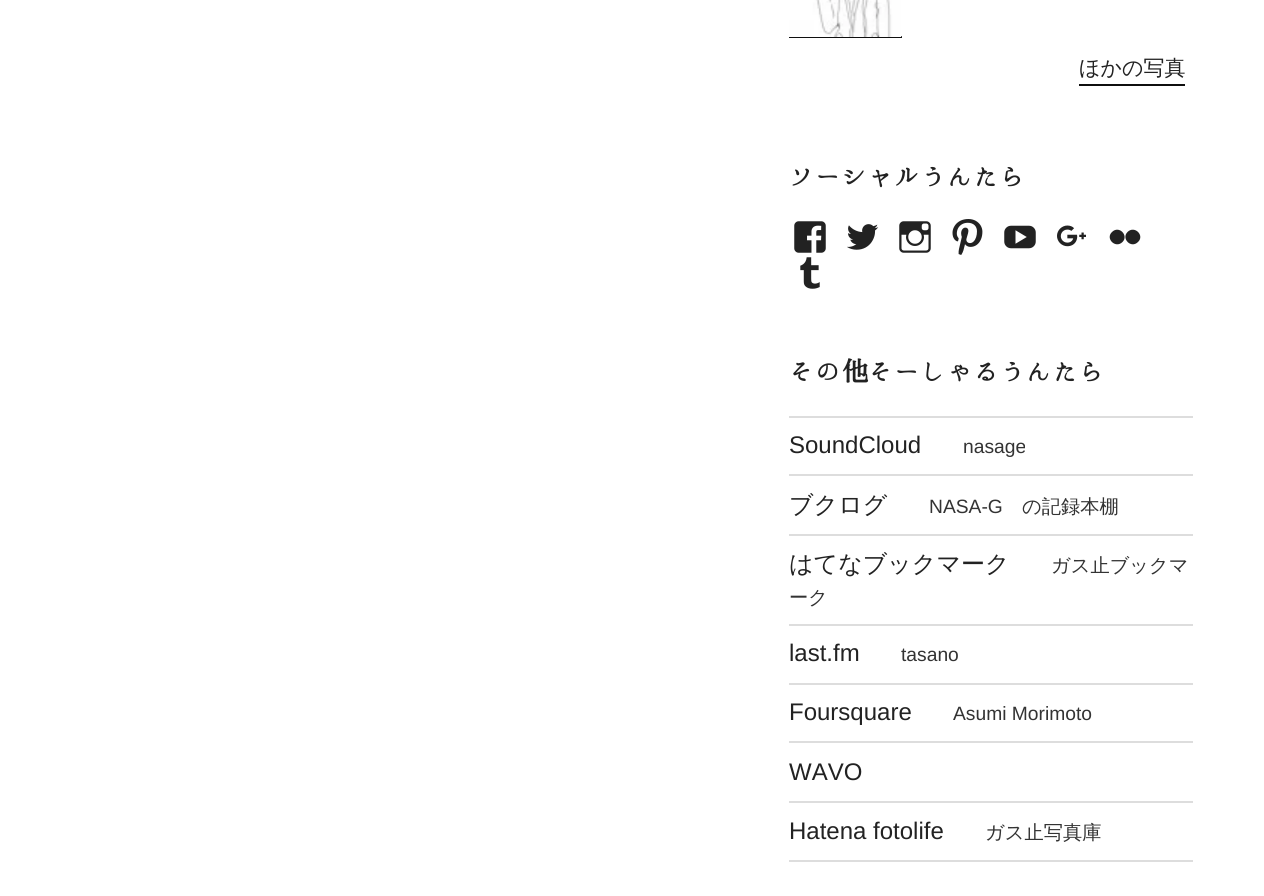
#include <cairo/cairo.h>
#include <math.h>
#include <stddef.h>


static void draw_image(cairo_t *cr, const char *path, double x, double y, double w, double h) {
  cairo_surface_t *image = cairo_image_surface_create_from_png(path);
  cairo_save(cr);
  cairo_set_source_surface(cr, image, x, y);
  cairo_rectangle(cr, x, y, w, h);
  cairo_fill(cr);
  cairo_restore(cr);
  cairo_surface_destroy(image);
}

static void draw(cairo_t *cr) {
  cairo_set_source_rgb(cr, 1, 1, 1);
  cairo_paint(cr);
  cairo_set_source_rgb(cr, 15 / 255.0, 15 / 255.0, 15 / 255.0);
  cairo_rectangle(cr, 789, 36, 113, 2);
  cairo_fill(cr);
  draw_image(cr, "images/1.png", 789, 0, 113, 37);
  cairo_rectangle(cr, 1079, 84, 106, 2);
  cairo_fill(cr);
  draw_image(cr, "images/2.png", 794, 221, 32, 32);
  draw_image(cr, "images/3.png", 847, 224, 32, 26);
  draw_image(cr, "images/4.png", 899, 221, 32, 32);
  draw_image(cr, "images/5.png", 952, 219, 31, 36);
  draw_image(cr, "images/6.png", 1004, 225, 32, 24);
  draw_image(cr, "images/7.png", 1057, 225, 29, 22);
  cairo_set_source_rgb(cr, 34 / 255.0, 34 / 255.0, 34 / 255.0);
  cairo_new_path(cr);
  cairo_move_to(cr, 1127.5, 232);
  cairo_curve_to(cr, 1134.5, 225, 1145, 235.5, 1138, 242);
  cairo_curve_to(cr, 1131, 249, 1121, 238.5, 1127.5, 232);
  cairo_close_path(cr);
  cairo_move_to(cr, 1112, 232);
  cairo_curve_to(cr, 1119, 225, 1129, 235.5, 1122.5, 242);
  cairo_curve_to(cr, 1115.5, 249, 1105, 238.5, 1112, 232);
  cairo_close_path(cr);
  cairo_fill(cr);
  draw_image(cr, "images/8.png", 800, 257, 20, 32);
  cairo_set_source_rgb(cr, 221 / 255.0, 221 / 255.0, 221 / 255.0);
  cairo_rectangle(cr, 789, 416, 404, 2);
  cairo_fill(cr);
  cairo_rectangle(cr, 789, 474, 404, 2);
  cairo_fill(cr);
  cairo_rectangle(cr, 789, 534, 404, 2);
  cairo_fill(cr);
  cairo_rectangle(cr, 789, 624, 404, 2);
  cairo_fill(cr);
  cairo_rectangle(cr, 789, 683, 404, 2);
  cairo_fill(cr);
  cairo_rectangle(cr, 789, 741, 404, 2);
  cairo_fill(cr);
  cairo_rectangle(cr, 789, 801, 404, 2);
  cairo_fill(cr);
  cairo_rectangle(cr, 789, 860, 404, 2);
  cairo_fill(cr);
  cairo_select_font_face(cr, "WenQuanYi Zen Hei Medium", CAIRO_FONT_SLANT_NORMAL, CAIRO_FONT_WEIGHT_NORMAL);
  cairo_set_font_size(cr, 21);
  cairo_set_source_rgb(cr, 34 / 255.0, 34 / 255.0, 34 / 255.0);
  cairo_move_to(cr, 1079, 75);
  cairo_show_text(cr, "ほかの写真");
  cairo_select_font_face(cr, "Hannari", CAIRO_FONT_SLANT_NORMAL, CAIRO_FONT_WEIGHT_BOLD);
  cairo_set_font_size(cr, 26.4);
  cairo_move_to(cr, 789, 186);
  cairo_show_text(cr, "ソーシャルうんたら");
  cairo_move_to(cr, 789, 381);
  cairo_show_text(cr, "その そーしゃるうんたら");
  cairo_select_font_face(cr, "Sawarabi Mincho", CAIRO_FONT_SLANT_NORMAL, CAIRO_FONT_WEIGHT_BOLD);
  cairo_move_to(cr, 842, 381);
  cairo_show_text(cr, "他");
  cairo_select_font_face(cr, "Liberation Sans", CAIRO_FONT_SLANT_NORMAL, CAIRO_FONT_WEIGHT_NORMAL);
  cairo_set_font_size(cr, 24);
  cairo_move_to(cr, 789, 453);
  cairo_show_text(cr, "SoundCloud");
  cairo_set_font_size(cr, 19.25);
  cairo_set_source_rgb(cr, 51 / 255.0, 51 / 255.0, 51 / 255.0);
  cairo_move_to(cr, 963, 453);
  cairo_show_text(cr, "nasage");
  cairo_select_font_face(cr, "WenQuanYi Zen Hei Medium", CAIRO_FONT_SLANT_NORMAL, CAIRO_FONT_WEIGHT_NORMAL);
  cairo_set_font_size(cr, 24);
  cairo_set_source_rgb(cr, 34 / 255.0, 34 / 255.0, 34 / 255.0);
  cairo_move_to(cr, 789, 513);
  cairo_show_text(cr, "ブクログ");
  cairo_select_font_face(cr, "Liberation Sans", CAIRO_FONT_SLANT_NORMAL, CAIRO_FONT_WEIGHT_NORMAL);
  cairo_set_font_size(cr, 19.25);
  cairo_set_source_rgb(cr, 51 / 255.0, 51 / 255.0, 51 / 255.0);
  cairo_move_to(cr, 929, 513);
  cairo_show_text(cr, "NASA-G");
  cairo_select_font_face(cr, "WenQuanYi Zen Hei Medium", CAIRO_FONT_SLANT_NORMAL, CAIRO_FONT_WEIGHT_NORMAL);
  cairo_move_to(cr, 1022, 513);
  cairo_show_text(cr, "の記録本棚");
  cairo_set_font_size(cr, 24);
  cairo_set_source_rgb(cr, 34 / 255.0, 34 / 255.0, 34 / 255.0);
  cairo_move_to(cr, 789, 572);
  cairo_show_text(cr, "はてなブックマーク");
  cairo_set_font_size(cr, 19.25);
  cairo_set_source_rgb(cr, 51 / 255.0, 51 / 255.0, 51 / 255.0);
  cairo_move_to(cr, 1051, 572);
  cairo_show_text(cr, "ガス止ブックマ");
  cairo_move_to(cr, 789, 604);
  cairo_show_text(cr, "ーク");
  cairo_select_font_face(cr, "Liberation Sans", CAIRO_FONT_SLANT_NORMAL, CAIRO_FONT_WEIGHT_NORMAL);
  cairo_set_font_size(cr, 24);
  cairo_set_source_rgb(cr, 34 / 255.0, 34 / 255.0, 34 / 255.0);
  cairo_move_to(cr, 789, 661);
  cairo_show_text(cr, "last.fm");
  cairo_set_font_size(cr, 19.25);
  cairo_set_source_rgb(cr, 51 / 255.0, 51 / 255.0, 51 / 255.0);
  cairo_move_to(cr, 901, 661);
  cairo_show_text(cr, "tasano");
  cairo_set_font_size(cr, 24);
  cairo_set_source_rgb(cr, 34 / 255.0, 34 / 255.0, 34 / 255.0);
  cairo_move_to(cr, 789, 720);
  cairo_show_text(cr, "Foursquare");
  cairo_set_font_size(cr, 19.25);
  cairo_set_source_rgb(cr, 51 / 255.0, 51 / 255.0, 51 / 255.0);
  cairo_move_to(cr, 953, 720);
  cairo_show_text(cr, "Asumi Morimoto");
  cairo_set_font_size(cr, 24);
  cairo_set_source_rgb(cr, 34 / 255.0, 34 / 255.0, 34 / 255.0);
  cairo_move_to(cr, 789, 780);
  cairo_show_text(cr, "WAVO");
  cairo_move_to(cr, 789, 839);
  cairo_show_text(cr, "Hatena fotolife");
  cairo_select_font_face(cr, "WenQuanYi Zen Hei Medium", CAIRO_FONT_SLANT_NORMAL, CAIRO_FONT_WEIGHT_NORMAL);
  cairo_set_font_size(cr, 19.25);
  cairo_set_source_rgb(cr, 51 / 255.0, 51 / 255.0, 51 / 255.0);
  cairo_move_to(cr, 985, 839);
  cairo_show_text(cr, "ガス止写真庫");
}

int main(void) {
  cairo_surface_t *surface = cairo_image_surface_create(CAIRO_FORMAT_RGB24, 1264, 896);
  cairo_t *cr = cairo_create(surface);
  cairo_font_options_t *options = cairo_font_options_create();
  cairo_font_options_set_hint_metrics(options, CAIRO_HINT_METRICS_OFF);
  cairo_font_options_set_hint_style(options, CAIRO_HINT_STYLE_NONE);
  cairo_set_font_options(cr, options);
  cairo_set_miter_limit(cr, 4);
  draw(cr);
  cairo_surface_write_to_png(surface, "out.png");
  cairo_font_options_destroy(options);
  cairo_destroy(cr);
  cairo_surface_destroy(surface);
  return 0;
}
